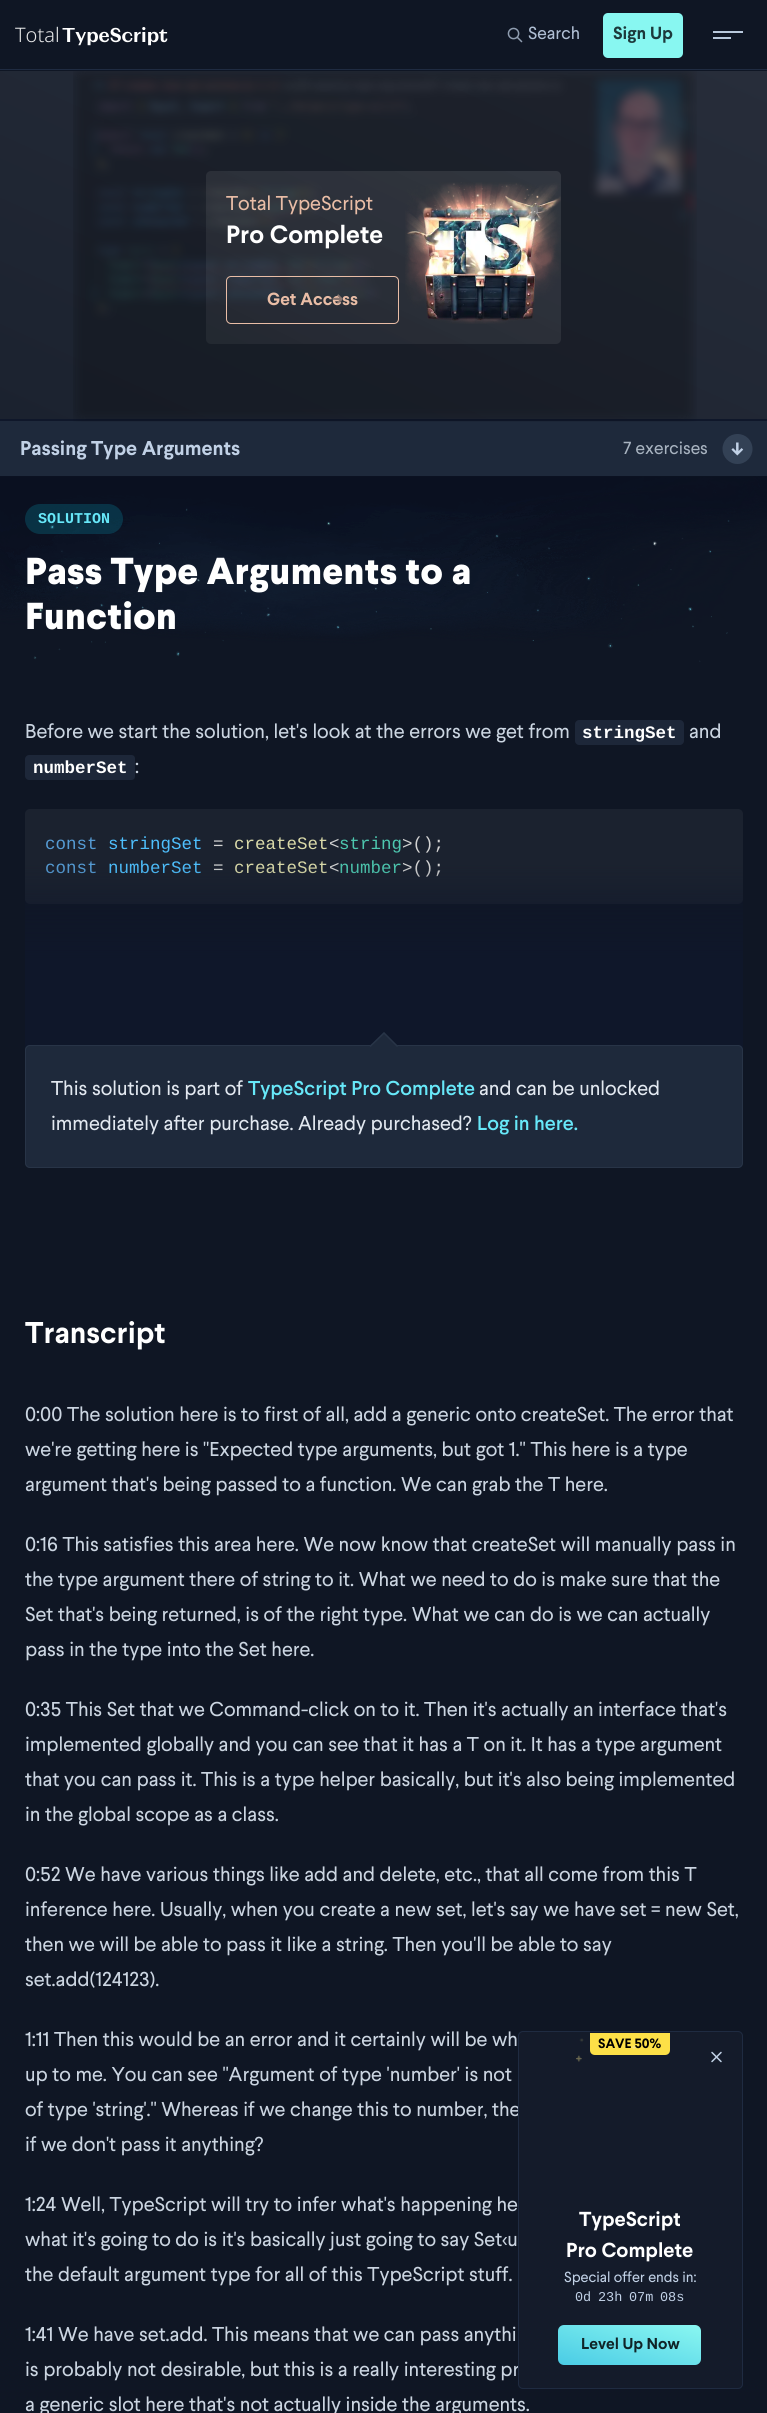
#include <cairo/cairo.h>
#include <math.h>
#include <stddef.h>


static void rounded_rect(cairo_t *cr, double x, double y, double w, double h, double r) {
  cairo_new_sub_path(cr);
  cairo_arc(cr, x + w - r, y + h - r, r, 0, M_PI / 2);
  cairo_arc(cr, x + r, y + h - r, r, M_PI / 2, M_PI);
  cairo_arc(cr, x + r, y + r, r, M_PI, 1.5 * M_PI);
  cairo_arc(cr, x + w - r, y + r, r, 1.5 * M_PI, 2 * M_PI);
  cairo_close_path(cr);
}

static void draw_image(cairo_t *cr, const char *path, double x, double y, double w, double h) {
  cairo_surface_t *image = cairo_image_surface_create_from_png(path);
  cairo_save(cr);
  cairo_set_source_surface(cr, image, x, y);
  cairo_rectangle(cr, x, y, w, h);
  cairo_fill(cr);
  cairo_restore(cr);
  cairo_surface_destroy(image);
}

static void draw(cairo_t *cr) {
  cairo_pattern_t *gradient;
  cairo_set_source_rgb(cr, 15 / 255.0, 22 / 255.0, 36 / 255.0);
  cairo_paint(cr);
  cairo_set_source_rgb(cr, 31 / 255.0, 43 / 255.0, 65 / 255.0);
  cairo_rectangle(cr, 0, 69, 767, 1);
  cairo_fill(cr);
  draw_image(cr, "images/1.png", 507, 27, 16, 16);
  cairo_set_source_rgb(cr, 136 / 255.0, 247 / 255.0, 241 / 255.0);
  rounded_rect(cr, 603, 13, 80, 45, 5);
  cairo_fill(cr);
  cairo_set_source_rgb(cr, 184 / 255.0, 200 / 255.0, 220 / 255.0);
  cairo_rectangle(cr, 713, 31, 30, 2);
  cairo_fill(cr);
  cairo_rectangle(cr, 713, 37, 18, 2);
  cairo_fill(cr);
  gradient = cairo_pattern_create_linear(253, 533, 514, -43);
  cairo_pattern_add_color_stop_rgba(gradient, 0, 27 / 255.0, 34 / 255.0, 47 / 255.0, 1);
  cairo_pattern_add_color_stop_rgba(gradient, 1, 39 / 255.0, 45 / 255.0, 58 / 255.0, 1);
  cairo_set_source(cr, gradient);
  cairo_pattern_destroy(gradient);
  cairo_rectangle(cr, 0, 71, 767, 348);
  cairo_fill(cr);
  cairo_set_source_rgb(cr, 15 / 255.0, 23 / 255.0, 42 / 255.0);
  cairo_rectangle(cr, 0, 419, 767, 2);
  cairo_fill(cr);
  cairo_set_source_rgb(cr, 30 / 255.0, 41 / 255.0, 59 / 255.0);
  cairo_rectangle(cr, 0, 421, 767, 55);
  cairo_fill(cr);
  draw_image(cr, "images/2.png", 73, 71, 624, 351);
  gradient = cairo_pattern_create_linear(316, 397, 452, 118);
  cairo_pattern_add_color_stop_rgba(gradient, 0, 1, 1, 1, 0.05);
  cairo_pattern_add_color_stop_rgba(gradient, 1, 1, 1, 1, 0.1);
  cairo_set_source(cr, gradient);
  cairo_pattern_destroy(gradient);
  rounded_rect(cr, 206, 171, 355, 173, 5);
  cairo_fill(cr);
  rounded_rect(cr, 226.5, 276.5, 172, 47, 4.5);
  cairo_set_source_rgb(cr, 233 / 255.0, 189 / 255.0, 166 / 255.0);
  cairo_set_line_width(cr, 1);
  cairo_stroke(cr);
  draw_image(cr, "images/3.png", 405, 182, 156, 142);
  cairo_set_source_rgb(cr, 51 / 255.0, 65 / 255.0, 85 / 255.0);
  cairo_new_path(cr);
  cairo_move_to(cr, 737.5, 464);
  cairo_curve_to(cr, 729, 464, 722.5, 457, 722.5, 449);
  cairo_curve_to(cr, 722.5, 440.5, 729, 434, 737.5, 434);
  cairo_curve_to(cr, 746, 434, 752.5, 440.5, 752.5, 449);
  cairo_curve_to(cr, 752.5, 457, 746, 464, 737.5, 464);
  cairo_close_path(cr);
  cairo_fill(cr);
  draw_image(cr, "images/4.png", 0, 476, 767, 186);
  cairo_set_source_rgba(cr, 6 / 255.0, 182 / 255.0, 212 / 255.0, 0.2);
  rounded_rect(cr, 25, 504, 98, 30, 15);
  cairo_fill(cr);
  cairo_set_source_rgb(cr, 29 / 255.0, 39 / 255.0, 57 / 255.0);
  cairo_new_path(cr);
  cairo_move_to(cr, 579, 720);
  cairo_line_to(cr, 583, 720);
  cairo_line_to(cr, 583, 745);
  cairo_line_to(cr, 579, 745);
  cairo_curve_to(cr, 577, 745, 575, 743, 575, 741);
  cairo_line_to(cr, 575, 724);
  cairo_curve_to(cr, 575, 722, 577, 720, 579, 720);
  cairo_close_path(cr);
  cairo_fill(cr);
  cairo_rectangle(cr, 583, 720, 93, 25);
  cairo_fill(cr);
  cairo_new_path(cr);
  cairo_move_to(cr, 676, 720);
  cairo_line_to(cr, 680, 720);
  cairo_curve_to(cr, 682, 720, 684, 722, 684, 724);
  cairo_line_to(cr, 684, 741);
  cairo_curve_to(cr, 684, 743, 682, 745, 680, 745);
  cairo_line_to(cr, 676, 745);
  cairo_close_path(cr);
  cairo_fill(cr);
  cairo_new_path(cr);
  cairo_move_to(cr, 29, 755);
  cairo_line_to(cr, 33, 755);
  cairo_line_to(cr, 33, 780);
  cairo_line_to(cr, 29, 780);
  cairo_curve_to(cr, 27, 780, 25, 778, 25, 776);
  cairo_line_to(cr, 25, 759);
  cairo_curve_to(cr, 25, 757, 27, 755, 29, 755);
  cairo_close_path(cr);
  cairo_fill(cr);
  cairo_rectangle(cr, 33, 755, 95, 25);
  cairo_fill(cr);
  cairo_new_path(cr);
  cairo_move_to(cr, 128, 755);
  cairo_line_to(cr, 131.5, 755);
  cairo_curve_to(cr, 133.5, 755, 135, 756.5, 135, 758.5);
  cairo_line_to(cr, 135, 776.5);
  cairo_curve_to(cr, 135, 778.5, 133.5, 780, 131.5, 780);
  cairo_line_to(cr, 128, 780);
  cairo_close_path(cr);
  cairo_fill(cr);
  cairo_set_source_rgb(cr, 27 / 255.0, 34 / 255.0, 47 / 255.0);
  rounded_rect(cr, 25, 809, 718, 95, 5);
  cairo_fill(cr);
  cairo_select_font_face(cr, "Noto Sans Light", CAIRO_FONT_SLANT_NORMAL, CAIRO_FONT_WEIGHT_NORMAL);
  cairo_set_font_size(cr, 20);
  cairo_set_source_rgb(cr, 231 / 255.0, 232 / 255.0, 233 / 255.0);
  cairo_move_to(cr, 15, 42);
  cairo_show_text(cr, "Total");
  cairo_select_font_face(cr, "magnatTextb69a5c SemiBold", CAIRO_FONT_SLANT_NORMAL, CAIRO_FONT_WEIGHT_NORMAL);
  cairo_set_source_rgb(cr, 1, 1, 1);
  cairo_move_to(cr, 62, 42);
  cairo_show_text(cr, "TypeScript");
  cairo_select_font_face(cr, "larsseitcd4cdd", CAIRO_FONT_SLANT_NORMAL, CAIRO_FONT_WEIGHT_NORMAL);
  cairo_set_font_size(cr, 17.5);
  cairo_set_source_rgb(cr, 175 / 255.0, 190 / 255.0, 211 / 255.0);
  cairo_move_to(cr, 528, 39);
  cairo_show_text(cr, "Search");
  cairo_select_font_face(cr, "larsseitcd4cdd", CAIRO_FONT_SLANT_NORMAL, CAIRO_FONT_WEIGHT_BOLD);
  cairo_set_source_rgb(cr, 28 / 255.0, 57 / 255.0, 59 / 255.0);
  cairo_move_to(cr, 613, 39);
  cairo_show_text(cr, "Sign Up");
  cairo_select_font_face(cr, "larsseitcd4cdd", CAIRO_FONT_SLANT_NORMAL, CAIRO_FONT_WEIGHT_NORMAL);
  cairo_set_font_size(cr, 20);
  cairo_set_source_rgb(cr, 233 / 255.0, 189 / 255.0, 166 / 255.0);
  cairo_move_to(cr, 226, 210);
  cairo_show_text(cr, "Total TypeScript");
  cairo_select_font_face(cr, "larsseitcd4cdd", CAIRO_FONT_SLANT_NORMAL, CAIRO_FONT_WEIGHT_BOLD);
  cairo_set_font_size(cr, 25);
  cairo_set_source_rgb(cr, 1, 1, 1);
  cairo_move_to(cr, 226, 243);
  cairo_show_text(cr, "Pro Complete");
  cairo_set_font_size(cr, 17.5);
  cairo_set_source_rgb(cr, 233 / 255.0, 189 / 255.0, 166 / 255.0);
  cairo_move_to(cr, 267, 305);
  cairo_show_text(cr, "Get Access");
  cairo_set_source_rgb(cr, 135 / 255.0, 117 / 255.0, 111 / 255.0);
  cairo_move_to(cr, 332, 305);
  cairo_show_text(cr, "→");
  cairo_set_font_size(cr, 20);
  cairo_set_source_rgb(cr, 193 / 255.0, 209 / 255.0, 230 / 255.0);
  cairo_move_to(cr, 20, 455);
  cairo_show_text(cr, "Passing Type Arguments");
  cairo_select_font_face(cr, "larsseitcd4cdd", CAIRO_FONT_SLANT_NORMAL, CAIRO_FONT_WEIGHT_NORMAL);
  cairo_set_font_size(cr, 17.5);
  cairo_set_source_rgb(cr, 168 / 255.0, 179 / 255.0, 192 / 255.0);
  cairo_move_to(cr, 623, 454);
  cairo_show_text(cr, "7 exercises");
  cairo_select_font_face(cr, "larsseitcd4cdd", CAIRO_FONT_SLANT_NORMAL, CAIRO_FONT_WEIGHT_BOLD);
  cairo_set_font_size(cr, 22);
  cairo_set_source_rgb(cr, 193 / 255.0, 209 / 255.0, 230 / 255.0);
  cairo_save(cr);
  cairo_translate(cr, 744, 441);
  cairo_rotate(cr, 180 * M_PI / 180);
  cairo_move_to(cr, 0, 0);
  cairo_show_text(cr, "↑");
  cairo_restore(cr);
  cairo_select_font_face(cr, "Liberation Mono", CAIRO_FONT_SLANT_NORMAL, CAIRO_FONT_WEIGHT_BOLD);
  cairo_set_font_size(cr, 15);
  cairo_set_source_rgb(cr, 103 / 255.0, 232 / 255.0, 249 / 255.0);
  cairo_move_to(cr, 38, 523);
  cairo_show_text(cr, "SOLUTION");
  cairo_select_font_face(cr, "larsseitcd4cdd ExtraBold", CAIRO_FONT_SLANT_NORMAL, CAIRO_FONT_WEIGHT_NORMAL);
  cairo_set_font_size(cr, 37.5);
  cairo_set_source_rgb(cr, 1, 1, 1);
  cairo_move_to(cr, 25, 584);
  cairo_show_text(cr, "Pass Type Arguments to a");
  cairo_move_to(cr, 25, 629);
  cairo_show_text(cr, "Function");
  cairo_select_font_face(cr, "larsseitcd4cdd", CAIRO_FONT_SLANT_NORMAL, CAIRO_FONT_WEIGHT_NORMAL);
  cairo_set_font_size(cr, 20);
  cairo_set_source_rgb(cr, 203 / 255.0, 213 / 255.0, 225 / 255.0);
  cairo_move_to(cr, 25, 738);
  cairo_show_text(cr, "Before we start the solution, let's look at the errors we get from");
  cairo_select_font_face(cr, "Liberation Mono", CAIRO_FONT_SLANT_NORMAL, CAIRO_FONT_WEIGHT_BOLD);
  cairo_set_font_size(cr, 17.5);
  cairo_set_source_rgb(cr, 1, 1, 1);
  cairo_move_to(cr, 582, 738);
  cairo_show_text(cr, "stringSet");
  cairo_select_font_face(cr, "larsseitcd4cdd", CAIRO_FONT_SLANT_NORMAL, CAIRO_FONT_WEIGHT_NORMAL);
  cairo_set_font_size(cr, 20);
  cairo_set_source_rgb(cr, 203 / 255.0, 213 / 255.0, 225 / 255.0);
  cairo_move_to(cr, 689, 738);
  cairo_show_text(cr, "and");
  cairo_select_font_face(cr, "Liberation Mono", CAIRO_FONT_SLANT_NORMAL, CAIRO_FONT_WEIGHT_BOLD);
  cairo_set_font_size(cr, 17.5);
  cairo_set_source_rgb(cr, 1, 1, 1);
  cairo_move_to(cr, 33, 773);
  cairo_show_text(cr, "numberSet");
  cairo_select_font_face(cr, "larsseitcd4cdd", CAIRO_FONT_SLANT_NORMAL, CAIRO_FONT_WEIGHT_NORMAL);
  cairo_set_font_size(cr, 20);
  cairo_set_source_rgb(cr, 203 / 255.0, 213 / 255.0, 225 / 255.0);
  cairo_move_to(cr, 135, 773);
  cairo_show_text(cr, ":");
  cairo_select_font_face(cr, "Liberation Mono", CAIRO_FONT_SLANT_NORMAL, CAIRO_FONT_WEIGHT_NORMAL);
  cairo_set_font_size(cr, 17.5);
  cairo_set_source_rgb(cr, 85 / 255.0, 155 / 255.0, 212 / 255.0);
  cairo_move_to(cr, 45, 849);
  cairo_show_text(cr, "const");
  cairo_set_source_rgb(cr, 78 / 255.0, 191 / 255.0, 253 / 255.0);
  cairo_move_to(cr, 108, 849);
  cairo_show_text(cr, "stringSet");
  cairo_set_source_rgb(cr, 210 / 255.0, 210 / 255.0, 210 / 255.0);
  cairo_move_to(cr, 213, 849);
  cairo_show_text(cr, "=");
  cairo_set_source_rgb(cr, 218 / 255.0, 218 / 255.0, 169 / 255.0);
  cairo_move_to(cr, 234, 849);
  cairo_show_text(cr, "createSet");
  cairo_set_source_rgb(cr, 210 / 255.0, 210 / 255.0, 210 / 255.0);
  cairo_move_to(cr, 329, 849);
  cairo_show_text(cr, "<");
  cairo_set_source_rgb(cr, 77 / 255.0, 199 / 255.0, 175 / 255.0);
  cairo_move_to(cr, 339, 849);
  cairo_show_text(cr, "string");
  cairo_set_source_rgb(cr, 210 / 255.0, 210 / 255.0, 210 / 255.0);
  cairo_move_to(cr, 402, 849);
  cairo_show_text(cr, ">();");
  cairo_set_source_rgb(cr, 85 / 255.0, 155 / 255.0, 212 / 255.0);
  cairo_move_to(cr, 45, 873);
  cairo_show_text(cr, "const");
  cairo_set_source_rgb(cr, 78 / 255.0, 191 / 255.0, 253 / 255.0);
  cairo_move_to(cr, 108, 873);
  cairo_show_text(cr, "numberSet");
  cairo_set_source_rgb(cr, 210 / 255.0, 210 / 255.0, 210 / 255.0);
  cairo_move_to(cr, 213, 873);
  cairo_show_text(cr, "=");
  cairo_set_source_rgb(cr, 218 / 255.0, 218 / 255.0, 169 / 255.0);
  cairo_move_to(cr, 234, 873);
  cairo_show_text(cr, "createSet");
  cairo_set_source_rgb(cr, 210 / 255.0, 210 / 255.0, 210 / 255.0);
  cairo_move_to(cr, 329, 873);
  cairo_show_text(cr, "<");
  cairo_set_source_rgb(cr, 77 / 255.0, 199 / 255.0, 175 / 255.0);
  cairo_move_to(cr, 339, 873);
  cairo_show_text(cr, "number");
  cairo_set_source_rgb(cr, 210 / 255.0, 210 / 255.0, 210 / 255.0);
  cairo_move_to(cr, 402, 873);
  cairo_show_text(cr, ">();");
  gradient = cairo_pattern_create_linear(384, 863, 384, 1060);
  cairo_pattern_add_color_stop_rgba(gradient, 0, 15 / 255.0, 23 / 255.0, 42 / 255.0, 0);
  cairo_pattern_add_color_stop_rgba(gradient, 0.5, 15 / 255.0, 23 / 255.0, 42 / 255.0, 1);
  cairo_pattern_add_color_stop_rgba(gradient, 1, 15 / 255.0, 23 / 255.0, 42 / 255.0, 1);
  cairo_set_source(cr, gradient);
  cairo_pattern_destroy(gradient);
  cairo_rectangle(cr, 25, 865, 718, 185);
  cairo_fill(cr);
  cairo_set_source_rgb(cr, 30 / 255.0, 41 / 255.0, 59 / 255.0);
  rounded_rect(cr, 25, 1045, 718, 123, 5);
  cairo_fill(cr);
  rounded_rect(cr, 25.5, 1045.5, 717, 122, 4.5);
  cairo_set_source_rgba(cr, 51 / 255.0, 65 / 255.0, 85 / 255.0, 0.5);
  cairo_stroke(cr);
  cairo_set_source_rgb(cr, 30 / 255.0, 41 / 255.0, 59 / 255.0);
  cairo_new_path(cr);
  cairo_move_to(cr, 384, 1032);
  cairo_line_to(cr, 398, 1046);
  cairo_line_to(cr, 384, 1060.5);
  cairo_line_to(cr, 369.5, 1046);
  cairo_close_path(cr);
  cairo_fill(cr);
  cairo_set_source_rgba(cr, 51 / 255.0, 65 / 255.0, 85 / 255.0, 0.5);
  cairo_new_path(cr);
  cairo_move_to(cr, 384, 1032);
  cairo_line_to(cr, 398, 1046);
  cairo_line_to(cr, 397, 1047);
  cairo_line_to(cr, 384, 1034);
  cairo_close_path(cr);
  cairo_move_to(cr, 369.5, 1046);
  cairo_line_to(cr, 384, 1032);
  cairo_line_to(cr, 384, 1034);
  cairo_line_to(cr, 370.5, 1047);
  cairo_close_path(cr);
  cairo_fill(cr);
  cairo_select_font_face(cr, "larsseitcd4cdd", CAIRO_FONT_SLANT_NORMAL, CAIRO_FONT_WEIGHT_NORMAL);
  cairo_set_font_size(cr, 20);
  cairo_set_source_rgb(cr, 226 / 255.0, 232 / 255.0, 240 / 255.0);
  cairo_move_to(cr, 51, 1095);
  cairo_show_text(cr, "This solution is part of");
  cairo_select_font_face(cr, "larsseitcd4cdd Medium", CAIRO_FONT_SLANT_NORMAL, CAIRO_FONT_WEIGHT_NORMAL);
  cairo_set_source_rgb(cr, 103 / 255.0, 232 / 255.0, 249 / 255.0);
  cairo_move_to(cr, 248, 1095);
  cairo_show_text(cr, "TypeScript Pro Complete");
  cairo_select_font_face(cr, "larsseitcd4cdd", CAIRO_FONT_SLANT_NORMAL, CAIRO_FONT_WEIGHT_NORMAL);
  cairo_set_source_rgb(cr, 226 / 255.0, 232 / 255.0, 240 / 255.0);
  cairo_move_to(cr, 479, 1095);
  cairo_show_text(cr, "and can be unlocked");
  cairo_move_to(cr, 51, 1130);
  cairo_show_text(cr, "immediately after purchase. Already purchased?");
  cairo_select_font_face(cr, "larsseitcd4cdd Medium", CAIRO_FONT_SLANT_NORMAL, CAIRO_FONT_WEIGHT_NORMAL);
  cairo_set_source_rgb(cr, 103 / 255.0, 232 / 255.0, 249 / 255.0);
  cairo_move_to(cr, 477, 1130);
  cairo_show_text(cr, "Log in here.");
  cairo_select_font_face(cr, "larsseitcd4cdd", CAIRO_FONT_SLANT_NORMAL, CAIRO_FONT_WEIGHT_BOLD);
  cairo_set_font_size(cr, 30);
  cairo_set_source_rgb(cr, 1, 1, 1);
  cairo_move_to(cr, 25, 1343);
  cairo_show_text(cr, "Transcript");
  cairo_select_font_face(cr, "larsseitcd4cdd", CAIRO_FONT_SLANT_NORMAL, CAIRO_FONT_WEIGHT_NORMAL);
  cairo_set_font_size(cr, 20);
  cairo_set_source_rgb(cr, 203 / 255.0, 213 / 255.0, 225 / 255.0);
  cairo_move_to(cr, 25, 1421);
  cairo_show_text(cr, "0:00 The solution here is to first of all, add a generic onto createSet. The error that");
  cairo_move_to(cr, 25, 1456);
  cairo_show_text(cr, "we're getting here is \"Expected type arguments, but got 1.\" This here is a type");
  cairo_move_to(cr, 25, 1491);
  cairo_show_text(cr, "argument that's being passed to a function. We can grab the T here.");
  cairo_move_to(cr, 25, 1551);
  cairo_show_text(cr, "0:16 This satisfies this area here. We now know that createSet will manually pass in");
  cairo_move_to(cr, 25, 1586);
  cairo_show_text(cr, "the type argument there of string to it. What we need to do is make sure that the");
  cairo_move_to(cr, 25, 1621);
  cairo_show_text(cr, "Set that's being returned, is of the right type. What we can do is we can actually");
  cairo_move_to(cr, 25, 1656);
  cairo_show_text(cr, "pass in the type into the Set here.");
  cairo_move_to(cr, 25, 1716);
  cairo_show_text(cr, "0:35 This Set that we Command-click on to it. Then it's actually an interface that's");
  cairo_move_to(cr, 25, 1751);
  cairo_show_text(cr, "implemented globally and you can see that it has a T on it. It has a type argument");
  cairo_move_to(cr, 25, 1786);
  cairo_show_text(cr, "that you can pass it. This is a type helper basically, but it's also being implemented");
  cairo_move_to(cr, 25, 1821);
  cairo_show_text(cr, "in the global scope as a class.");
  cairo_move_to(cr, 25, 1881);
  cairo_show_text(cr, "0:52 We have various things like add and delete, etc., that all come from this T");
  cairo_move_to(cr, 25, 1916);
  cairo_show_text(cr, "inference here. Usually, when you create a new set, let's say we have set = new Set,");
  cairo_move_to(cr, 25, 1951);
  cairo_show_text(cr, "then we will be able to pass it like a string. Then you'll be able to say");
  cairo_move_to(cr, 25, 1986);
  cairo_show_text(cr, "set.add(124123).");
  cairo_move_to(cr, 25, 2046);
  cairo_show_text(cr, "1:11 Then this would be an error and it certainly will be wh");
  cairo_move_to(cr, 25, 2081);
  cairo_show_text(cr, "up to me. You can see \"Argument of type 'number' is not");
  cairo_move_to(cr, 25, 2116);
  cairo_show_text(cr, "of type 'string'.\" Whereas if we change this to number, the");
  cairo_move_to(cr, 25, 2151);
  cairo_show_text(cr, "if we don't pass it anything?");
  cairo_move_to(cr, 25, 2211);
  cairo_show_text(cr, "1:24 Well, TypeScript will try to infer what's happening he");
  cairo_move_to(cr, 25, 2246);
  cairo_show_text(cr, "what it's going to do is it's basically just going to say Set<u");
  cairo_move_to(cr, 25, 2281);
  cairo_show_text(cr, "the default argument type for all of this TypeScript stuff.");
  cairo_move_to(cr, 25, 2341);
  cairo_show_text(cr, "1:41 We have set.add. This means that we can pass anythi");
  cairo_move_to(cr, 25, 2376);
  cairo_show_text(cr, "is probably not desirable, but this is a really interesting pr");
  cairo_move_to(cr, 25, 2411);
  cairo_show_text(cr, "a generic slot here that's not actually inside the arguments.");
  cairo_set_source_rgb(cr, 20 / 255.0, 27 / 255.0, 42 / 255.0);
  rounded_rect(cr, 518.5, 2031.5, 224, 357, 4.5);
  cairo_fill_preserve(cr);
  cairo_set_source_rgb(cr, 31 / 255.0, 43 / 255.0, 65 / 255.0);
  cairo_stroke(cr);
  cairo_set_source_rgb(cr, 253 / 255.0, 224 / 255.0, 71 / 255.0);
  cairo_new_path(cr);
  cairo_move_to(cr, 590, 2033);
  cairo_line_to(cr, 670, 2033);
  cairo_line_to(cr, 670, 2050);
  cairo_curve_to(cr, 670, 2053, 668, 2055, 665, 2055);
  cairo_line_to(cr, 595, 2055);
  cairo_curve_to(cr, 592, 2055, 590, 2053, 590, 2050);
  cairo_close_path(cr);
  cairo_fill(cr);
  cairo_select_font_face(cr, "larsseitcd4cdd", CAIRO_FONT_SLANT_NORMAL, CAIRO_FONT_WEIGHT_BOLD);
  cairo_set_font_size(cr, 13.5);
  cairo_set_source_rgb(cr, 0, 0, 0);
  cairo_move_to(cr, 598, 2048);
  cairo_show_text(cr, "SAVE 50%");
  draw_image(cr, "images/5.png", 576, 2038, 61, 24);
  cairo_new_path(cr);
  cairo_move_to(cr, 721, 2052.5);
  cairo_line_to(cr, 712, 2061.5);
  cairo_move_to(cr, 712, 2052.5);
  cairo_line_to(cr, 721, 2061.5);
  cairo_set_source_rgb(cr, 193 / 255.0, 209 / 255.0, 230 / 255.0);
  cairo_set_line_width(cr, 1.5);
  cairo_set_line_cap(cr, CAIRO_LINE_CAP_ROUND);
  cairo_set_line_join(cr, CAIRO_LINE_JOIN_ROUND);
  cairo_stroke(cr);
  cairo_set_font_size(cr, 20.25);
  cairo_set_source_rgb(cr, 1, 1, 1);
  cairo_move_to(cr, 579, 2226);
  cairo_show_text(cr, "TypeScript");
  cairo_move_to(cr, 566, 2257);
  cairo_show_text(cr, "Pro Complete");
  cairo_select_font_face(cr, "larsseitcd4cdd", CAIRO_FONT_SLANT_NORMAL, CAIRO_FONT_WEIGHT_NORMAL);
  cairo_set_font_size(cr, 14.6);
  cairo_set_source_rgb(cr, 193 / 255.0, 209 / 255.0, 230 / 255.0);
  cairo_move_to(cr, 564, 2282);
  cairo_show_text(cr, "Special offer ends in:");
  cairo_select_font_face(cr, "Liberation Mono", CAIRO_FONT_SLANT_NORMAL, CAIRO_FONT_WEIGHT_NORMAL);
  cairo_set_font_size(cr, 13.5);
  cairo_move_to(cr, 575, 2301);
  cairo_show_text(cr, "0d");
  cairo_move_to(cr, 598, 2301);
  cairo_show_text(cr, "23h");
  cairo_move_to(cr, 629, 2301);
  cairo_show_text(cr, "07m");
  cairo_move_to(cr, 660, 2301);
  cairo_show_text(cr, "08s");
  gradient = cairo_pattern_create_linear(619, 2382, 641, 2307);
  cairo_pattern_add_color_stop_rgba(gradient, 0, 75 / 255.0, 204 / 255.0, 229 / 255.0, 1);
  cairo_pattern_add_color_stop_rgba(gradient, 1, 138 / 255.0, 247 / 255.0, 241 / 255.0, 1);
  cairo_set_source(cr, gradient);
  cairo_pattern_destroy(gradient);
  rounded_rect(cr, 558, 2325, 143, 40, 6);
  cairo_fill(cr);
  cairo_select_font_face(cr, "larsseitcd4cdd", CAIRO_FONT_SLANT_NORMAL, CAIRO_FONT_WEIGHT_BOLD);
  cairo_set_font_size(cr, 15.75);
  cairo_set_source_rgb(cr, 16 / 255.0, 36 / 255.0, 39 / 255.0);
  cairo_move_to(cr, 581, 2349);
  cairo_show_text(cr, "Level Up Now");
}

int main(void) {
  cairo_surface_t *surface = cairo_image_surface_create(CAIRO_FORMAT_RGB24, 767, 2413);
  cairo_t *cr = cairo_create(surface);
  cairo_font_options_t *options = cairo_font_options_create();
  cairo_font_options_set_hint_metrics(options, CAIRO_HINT_METRICS_OFF);
  cairo_font_options_set_hint_style(options, CAIRO_HINT_STYLE_NONE);
  cairo_set_font_options(cr, options);
  cairo_set_miter_limit(cr, 4);
  draw(cr);
  cairo_surface_write_to_png(surface, "out.png");
  cairo_font_options_destroy(options);
  cairo_destroy(cr);
  cairo_surface_destroy(surface);
  return 0;
}
